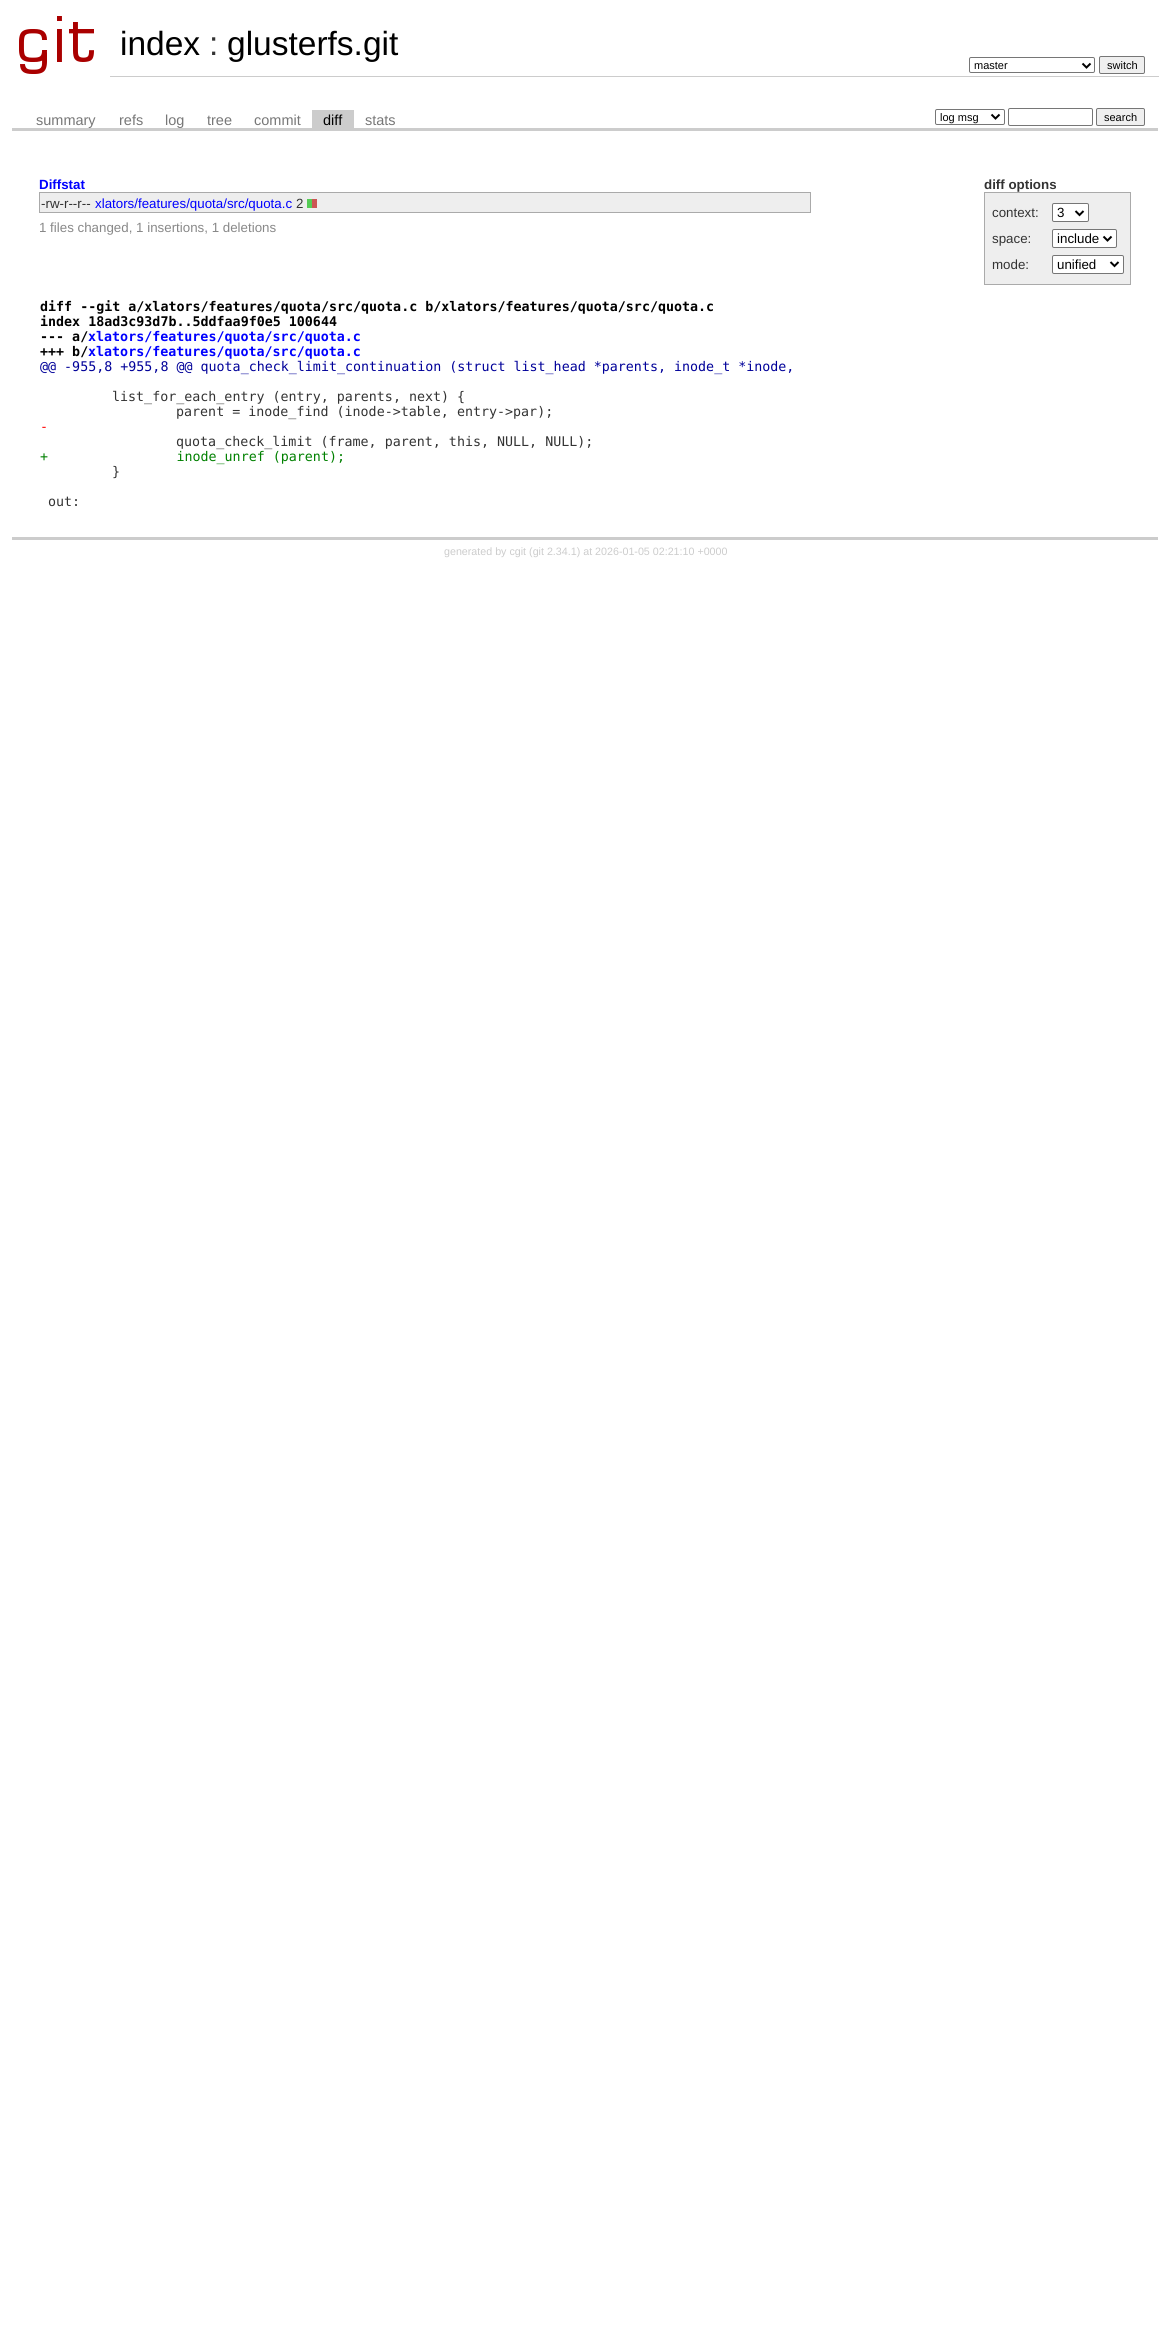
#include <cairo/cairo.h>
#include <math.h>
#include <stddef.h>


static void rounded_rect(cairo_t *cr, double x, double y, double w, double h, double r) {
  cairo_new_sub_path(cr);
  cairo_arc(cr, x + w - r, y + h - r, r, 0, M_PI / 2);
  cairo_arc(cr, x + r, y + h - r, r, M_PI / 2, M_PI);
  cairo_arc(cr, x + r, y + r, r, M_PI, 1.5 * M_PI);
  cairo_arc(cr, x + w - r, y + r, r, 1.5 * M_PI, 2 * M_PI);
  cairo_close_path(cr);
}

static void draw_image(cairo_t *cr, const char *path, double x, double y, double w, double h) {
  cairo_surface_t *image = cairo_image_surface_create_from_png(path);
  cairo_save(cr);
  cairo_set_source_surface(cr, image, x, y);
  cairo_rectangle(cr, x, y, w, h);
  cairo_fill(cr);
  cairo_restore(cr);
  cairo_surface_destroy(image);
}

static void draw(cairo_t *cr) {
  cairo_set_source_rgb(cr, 1, 1, 1);
  cairo_paint(cr);
  draw_image(cr, "images/1.png", 19, 16, 75, 58);
  rounded_rect(cr, 969.5, 57.5, 125, 15, 1.5);
  cairo_set_source_rgb(cr, 118 / 255.0, 118 / 255.0, 118 / 255.0);
  cairo_set_line_width(cr, 1);
  cairo_stroke(cr);
  cairo_new_path(cr);
  cairo_move_to(cr, 1082.5, 63.5);
  cairo_line_to(cr, 1086.5, 67.5);
  cairo_line_to(cr, 1090.5, 63.5);
  cairo_set_source_rgb(cr, 0, 0, 0);
  cairo_set_line_width(cr, 2);
  cairo_stroke(cr);
  cairo_set_source_rgb(cr, 239 / 255.0, 239 / 255.0, 239 / 255.0);
  rounded_rect(cr, 1099.5, 56.5, 45, 17, 1.5);
  cairo_fill_preserve(cr);
  cairo_set_source_rgb(cr, 118 / 255.0, 118 / 255.0, 118 / 255.0);
  cairo_set_line_width(cr, 1);
  cairo_stroke(cr);
  cairo_set_source_rgb(cr, 204 / 255.0, 204 / 255.0, 204 / 255.0);
  cairo_rectangle(cr, 110, 76, 1049, 1);
  cairo_fill(cr);
  cairo_rectangle(cr, 12, 128, 1146, 3);
  cairo_fill(cr);
  cairo_rectangle(cr, 312, 110, 42, 18);
  cairo_fill(cr);
  rounded_rect(cr, 935.5, 109.5, 69, 15, 1.5);
  cairo_set_source_rgb(cr, 118 / 255.0, 118 / 255.0, 118 / 255.0);
  cairo_stroke(cr);
  cairo_new_path(cr);
  cairo_move_to(cr, 991.5, 114.5);
  cairo_line_to(cr, 995.5, 118.5);
  cairo_line_to(cr, 999.5, 114.5);
  cairo_set_source_rgb(cr, 0, 0, 0);
  cairo_set_line_width(cr, 2);
  cairo_stroke(cr);
  rounded_rect(cr, 1008.5, 108.5, 84, 17, 1.5);
  cairo_set_source_rgb(cr, 118 / 255.0, 118 / 255.0, 118 / 255.0);
  cairo_set_line_width(cr, 1);
  cairo_stroke(cr);
  cairo_set_source_rgb(cr, 239 / 255.0, 239 / 255.0, 239 / 255.0);
  rounded_rect(cr, 1096.5, 108.5, 48, 17, 1.5);
  cairo_fill_preserve(cr);
  cairo_set_source_rgb(cr, 118 / 255.0, 118 / 255.0, 118 / 255.0);
  cairo_stroke(cr);
  cairo_set_source_rgb(cr, 204 / 255.0, 204 / 255.0, 204 / 255.0);
  cairo_rectangle(cr, 12, 537, 1146, 3);
  cairo_fill(cr);
  cairo_set_source_rgb(cr, 238 / 255.0, 238 / 255.0, 238 / 255.0);
  cairo_rectangle(cr, 985, 193, 145, 91);
  cairo_fill(cr);
  cairo_set_source_rgb(cr, 170 / 255.0, 170 / 255.0, 170 / 255.0);
  cairo_rectangle(cr, 984, 192, 147, 1);
  cairo_fill(cr);
  cairo_rectangle(cr, 1130, 192, 1, 93);
  cairo_fill(cr);
  cairo_rectangle(cr, 984, 284, 147, 1);
  cairo_fill(cr);
  cairo_rectangle(cr, 984, 192, 1, 93);
  cairo_fill(cr);
  cairo_set_source_rgb(cr, 1, 1, 1);
  rounded_rect(cr, 1052.5, 203.5, 36, 18, 1.5);
  cairo_fill_preserve(cr);
  cairo_set_source_rgb(cr, 118 / 255.0, 118 / 255.0, 118 / 255.0);
  cairo_stroke(cr);
  cairo_new_path(cr);
  cairo_move_to(cr, 1075.5, 211);
  cairo_line_to(cr, 1079.5, 215);
  cairo_line_to(cr, 1083.5, 211);
  cairo_set_source_rgb(cr, 0, 0, 0);
  cairo_set_line_width(cr, 2);
  cairo_stroke(cr);
  cairo_set_source_rgb(cr, 1, 1, 1);
  rounded_rect(cr, 1052.5, 229.5, 64, 18, 1.5);
  cairo_fill_preserve(cr);
  cairo_set_source_rgb(cr, 118 / 255.0, 118 / 255.0, 118 / 255.0);
  cairo_set_line_width(cr, 1);
  cairo_stroke(cr);
  cairo_new_path(cr);
  cairo_move_to(cr, 1103.5, 236.5);
  cairo_line_to(cr, 1107.5, 240.5);
  cairo_line_to(cr, 1111.5, 236.5);
  cairo_set_source_rgb(cr, 0, 0, 0);
  cairo_set_line_width(cr, 2);
  cairo_stroke(cr);
  cairo_set_source_rgb(cr, 1, 1, 1);
  rounded_rect(cr, 1052.5, 255.5, 71, 18, 1.5);
  cairo_fill_preserve(cr);
  cairo_set_source_rgb(cr, 118 / 255.0, 118 / 255.0, 118 / 255.0);
  cairo_set_line_width(cr, 1);
  cairo_stroke(cr);
  cairo_new_path(cr);
  cairo_move_to(cr, 1110.5, 262);
  cairo_line_to(cr, 1114.5, 266);
  cairo_line_to(cr, 1118.5, 262);
  cairo_set_source_rgb(cr, 0, 0, 0);
  cairo_set_line_width(cr, 2);
  cairo_stroke(cr);
  cairo_set_source_rgb(cr, 238 / 255.0, 238 / 255.0, 238 / 255.0);
  cairo_rectangle(cr, 40, 193, 770, 19);
  cairo_fill(cr);
  cairo_set_source_rgb(cr, 170 / 255.0, 170 / 255.0, 170 / 255.0);
  cairo_rectangle(cr, 39, 192, 772, 1);
  cairo_fill(cr);
  cairo_rectangle(cr, 810, 192, 1, 21);
  cairo_fill(cr);
  cairo_rectangle(cr, 39, 212, 772, 1);
  cairo_fill(cr);
  cairo_rectangle(cr, 39, 192, 1, 21);
  cairo_fill(cr);
  cairo_set_source_rgb(cr, 85 / 255.0, 204 / 255.0, 85 / 255.0);
  cairo_rectangle(cr, 307, 199, 5, 9);
  cairo_fill(cr);
  cairo_set_source_rgb(cr, 204 / 255.0, 85 / 255.0, 85 / 255.0);
  cairo_rectangle(cr, 312, 199, 5, 9);
  cairo_fill(cr);
  cairo_select_font_face(cr, "Liberation Sans", CAIRO_FONT_SLANT_NORMAL, CAIRO_FONT_WEIGHT_NORMAL);
  cairo_set_font_size(cr, 33.5);
  cairo_set_source_rgb(cr, 0, 0, 0);
  cairo_move_to(cr, 120, 55);
  cairo_show_text(cr, "index");
  cairo_set_source_rgb(cr, 51 / 255.0, 51 / 255.0, 51 / 255.0);
  cairo_move_to(cr, 209, 55);
  cairo_show_text(cr, ":");
  cairo_set_source_rgb(cr, 0, 0, 0);
  cairo_move_to(cr, 227, 55);
  cairo_show_text(cr, "glusterfs.git");
  cairo_set_font_size(cr, 11);
  cairo_move_to(cr, 974, 69);
  cairo_show_text(cr, "master");
  cairo_move_to(cr, 1107, 69);
  cairo_show_text(cr, "switch");
  cairo_set_font_size(cr, 14.5);
  cairo_set_source_rgb(cr, 119 / 255.0, 119 / 255.0, 119 / 255.0);
  cairo_move_to(cr, 36, 125);
  cairo_show_text(cr, "summary");
  cairo_move_to(cr, 119, 125);
  cairo_show_text(cr, "refs");
  cairo_move_to(cr, 165, 125);
  cairo_show_text(cr, "log");
  cairo_move_to(cr, 207, 125);
  cairo_show_text(cr, "tree");
  cairo_move_to(cr, 254, 125);
  cairo_show_text(cr, "commit");
  cairo_set_source_rgb(cr, 0, 0, 0);
  cairo_move_to(cr, 323, 125);
  cairo_show_text(cr, "diff");
  cairo_set_source_rgb(cr, 119 / 255.0, 119 / 255.0, 119 / 255.0);
  cairo_move_to(cr, 365, 125);
  cairo_show_text(cr, "stats");
  cairo_set_font_size(cr, 11);
  cairo_set_source_rgb(cr, 0, 0, 0);
  cairo_move_to(cr, 940, 121);
  cairo_show_text(cr, "log msg");
  cairo_move_to(cr, 1104, 121);
  cairo_show_text(cr, "search");
  cairo_select_font_face(cr, "Liberation Sans", CAIRO_FONT_SLANT_NORMAL, CAIRO_FONT_WEIGHT_BOLD);
  cairo_set_font_size(cr, 13.33);
  cairo_set_source_rgb(cr, 0, 0, 1);
  cairo_move_to(cr, 39, 189);
  cairo_show_text(cr, "Diffstat");
  cairo_set_source_rgb(cr, 51 / 255.0, 51 / 255.0, 51 / 255.0);
  cairo_move_to(cr, 984, 189);
  cairo_show_text(cr, "diff options");
  cairo_select_font_face(cr, "Liberation Sans", CAIRO_FONT_SLANT_NORMAL, CAIRO_FONT_WEIGHT_NORMAL);
  cairo_move_to(cr, 992, 217);
  cairo_show_text(cr, "context:");
  cairo_set_source_rgb(cr, 0, 0, 0);
  cairo_move_to(cr, 1057, 217);
  cairo_show_text(cr, "3");
  cairo_set_source_rgb(cr, 51 / 255.0, 51 / 255.0, 51 / 255.0);
  cairo_move_to(cr, 992, 243);
  cairo_show_text(cr, "space:");
  cairo_set_source_rgb(cr, 0, 0, 0);
  cairo_move_to(cr, 1057, 243);
  cairo_show_text(cr, "include");
  cairo_set_source_rgb(cr, 51 / 255.0, 51 / 255.0, 51 / 255.0);
  cairo_move_to(cr, 992, 269);
  cairo_show_text(cr, "mode:");
  cairo_set_source_rgb(cr, 0, 0, 0);
  cairo_move_to(cr, 1057, 269);
  cairo_show_text(cr, "unified");
  cairo_set_source_rgb(cr, 51 / 255.0, 51 / 255.0, 51 / 255.0);
  cairo_move_to(cr, 41, 208);
  cairo_show_text(cr, "-rw-r--r--");
  cairo_set_source_rgb(cr, 0, 0, 1);
  cairo_move_to(cr, 95, 208);
  cairo_show_text(cr, "xlators/features/quota/src/quota.c");
  cairo_set_source_rgb(cr, 51 / 255.0, 51 / 255.0, 51 / 255.0);
  cairo_move_to(cr, 296, 208);
  cairo_show_text(cr, "2");
  cairo_set_source_rgb(cr, 136 / 255.0, 136 / 255.0, 136 / 255.0);
  cairo_move_to(cr, 39, 232);
  cairo_show_text(cr, "1 files changed, 1 insertions, 1 deletions");
  cairo_select_font_face(cr, "DejaVu Sans Mono", CAIRO_FONT_SLANT_NORMAL, CAIRO_FONT_WEIGHT_BOLD);
  cairo_set_source_rgb(cr, 0, 0, 0);
  cairo_move_to(cr, 40, 311);
  cairo_show_text(cr, "diff --git a/xlators/features/quota/src/quota.c b/xlators/features/quota/src/quota.c");
  cairo_move_to(cr, 40, 326);
  cairo_show_text(cr, "index 18ad3c93d7b..5ddfaa9f0e5 100644");
  cairo_move_to(cr, 40, 341);
  cairo_show_text(cr, "--- a/");
  cairo_set_source_rgb(cr, 0, 0, 1);
  cairo_move_to(cr, 88, 341);
  cairo_show_text(cr, "xlators/features/quota/src/quota.c");
  cairo_set_source_rgb(cr, 0, 0, 0);
  cairo_move_to(cr, 40, 356);
  cairo_show_text(cr, "+++ b/");
  cairo_set_source_rgb(cr, 0, 0, 1);
  cairo_move_to(cr, 88, 356);
  cairo_show_text(cr, "xlators/features/quota/src/quota.c");
  cairo_select_font_face(cr, "DejaVu Sans Mono", CAIRO_FONT_SLANT_NORMAL, CAIRO_FONT_WEIGHT_NORMAL);
  cairo_set_source_rgb(cr, 0, 0, 153 / 255.0);
  cairo_move_to(cr, 40, 371);
  cairo_show_text(cr, "@@ -955,8 +955,8 @@ quota_check_limit_continuation (struct list_head *parents, inode_t *inode,");
  cairo_set_source_rgb(cr, 51 / 255.0, 51 / 255.0, 51 / 255.0);
  cairo_move_to(cr, 112, 401);
  cairo_show_text(cr, "list_for_each_entry (entry, parents, next) {");
  cairo_move_to(cr, 176, 416);
  cairo_show_text(cr, "parent = inode_find (inode->table, entry->par);");
  cairo_set_source_rgb(cr, 1, 0, 0);
  cairo_move_to(cr, 40, 431);
  cairo_show_text(cr, "-");
  cairo_set_source_rgb(cr, 51 / 255.0, 51 / 255.0, 51 / 255.0);
  cairo_move_to(cr, 176, 446);
  cairo_show_text(cr, "quota_check_limit (frame, parent, this, NULL, NULL);");
  cairo_set_source_rgb(cr, 0, 128 / 255.0, 0);
  cairo_move_to(cr, 40, 461);
  cairo_show_text(cr, "+                inode_unref (parent);");
  cairo_set_source_rgb(cr, 51 / 255.0, 51 / 255.0, 51 / 255.0);
  cairo_move_to(cr, 112, 476);
  cairo_show_text(cr, "}");
  cairo_move_to(cr, 48, 506);
  cairo_show_text(cr, "out:");
  cairo_select_font_face(cr, "Liberation Sans", CAIRO_FONT_SLANT_NORMAL, CAIRO_FONT_WEIGHT_NORMAL);
  cairo_set_font_size(cr, 10.7);
  cairo_set_source_rgb(cr, 204 / 255.0, 204 / 255.0, 204 / 255.0);
  cairo_move_to(cr, 444, 555);
  cairo_show_text(cr, "generated by cgit (git 2.34.1) at 2026-01-05 02:21:10 +0000");
}

int main(void) {
  cairo_surface_t *surface = cairo_image_surface_create(CAIRO_FORMAT_RGB24, 1170, 2337);
  cairo_t *cr = cairo_create(surface);
  cairo_font_options_t *options = cairo_font_options_create();
  cairo_font_options_set_hint_metrics(options, CAIRO_HINT_METRICS_OFF);
  cairo_font_options_set_hint_style(options, CAIRO_HINT_STYLE_NONE);
  cairo_set_font_options(cr, options);
  cairo_set_miter_limit(cr, 4);
  draw(cr);
  cairo_surface_write_to_png(surface, "out.png");
  cairo_font_options_destroy(options);
  cairo_destroy(cr);
  cairo_surface_destroy(surface);
  return 0;
}
